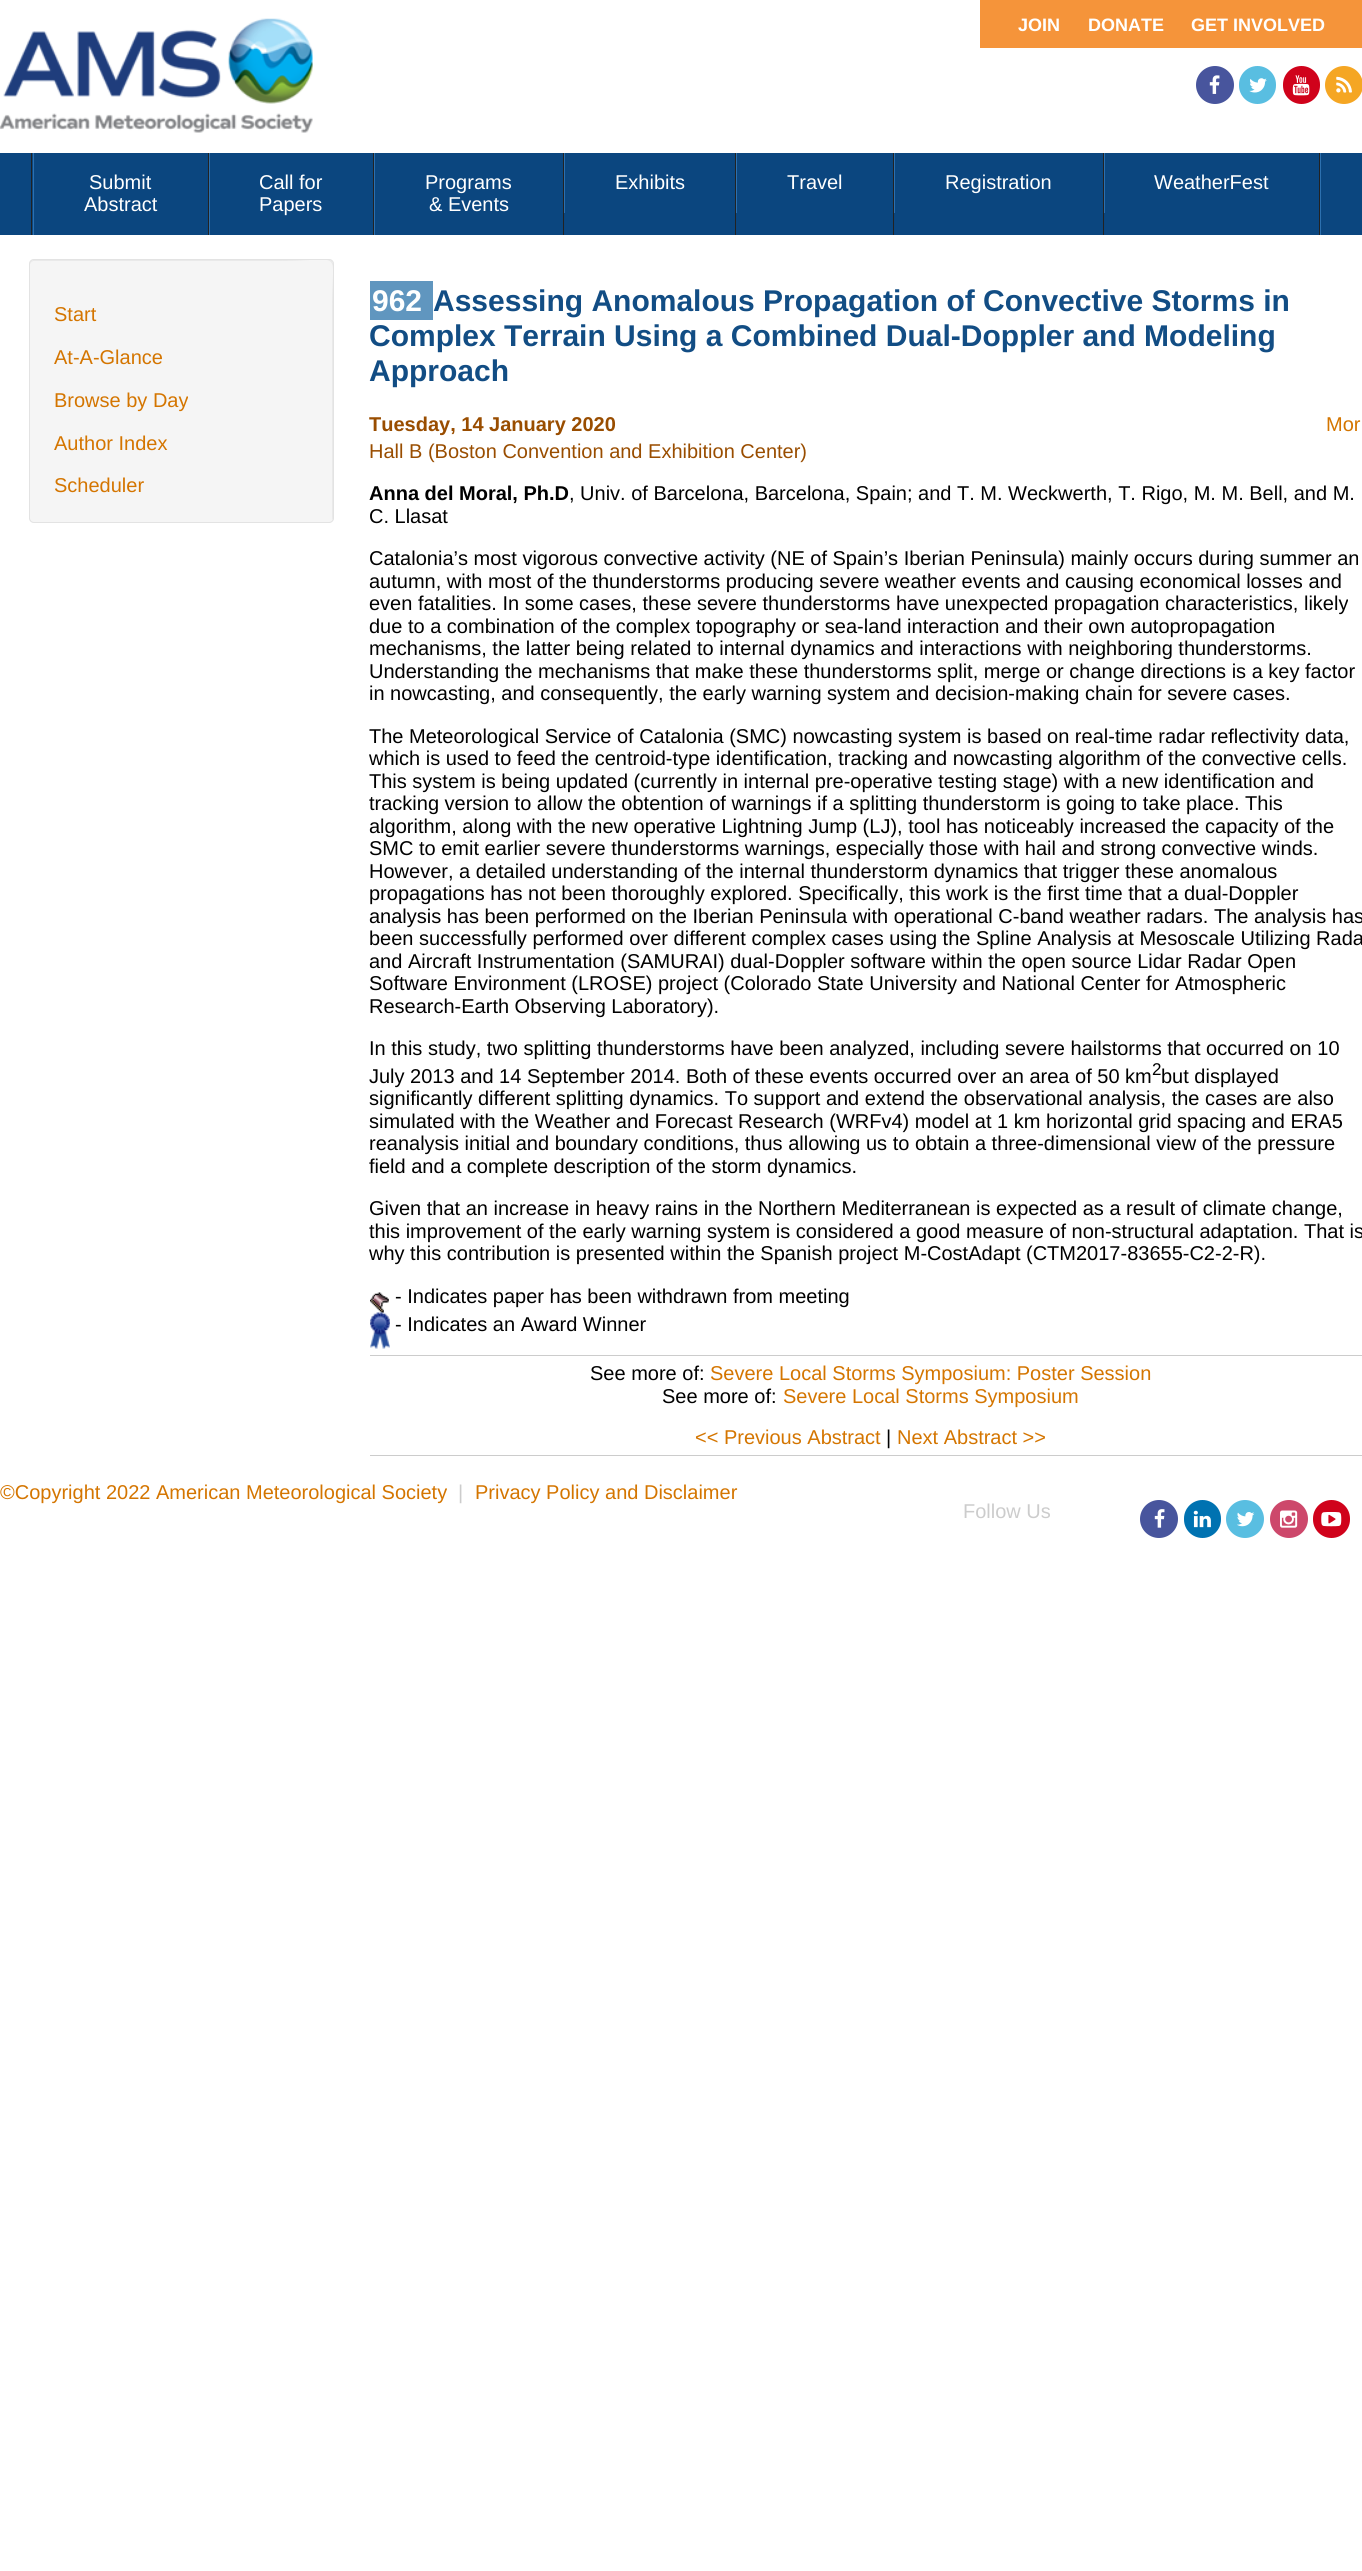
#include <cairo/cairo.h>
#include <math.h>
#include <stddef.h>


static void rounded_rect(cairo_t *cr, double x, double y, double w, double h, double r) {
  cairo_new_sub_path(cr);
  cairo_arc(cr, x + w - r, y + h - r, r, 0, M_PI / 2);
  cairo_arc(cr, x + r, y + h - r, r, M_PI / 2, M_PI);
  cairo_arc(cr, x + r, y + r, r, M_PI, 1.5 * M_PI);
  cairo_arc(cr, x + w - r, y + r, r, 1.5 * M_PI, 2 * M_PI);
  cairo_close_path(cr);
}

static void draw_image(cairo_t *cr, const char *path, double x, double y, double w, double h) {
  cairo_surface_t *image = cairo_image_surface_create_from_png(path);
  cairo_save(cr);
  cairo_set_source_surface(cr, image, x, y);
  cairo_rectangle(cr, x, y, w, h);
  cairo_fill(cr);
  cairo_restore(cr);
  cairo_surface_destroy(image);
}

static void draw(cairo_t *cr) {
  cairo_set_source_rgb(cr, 1, 1, 1);
  cairo_paint(cr);
  draw_image(cr, "images/1.png", 0, 18, 313, 115);
  cairo_set_source_rgb(cr, 245 / 255.0, 148 / 255.0, 58 / 255.0);
  cairo_rectangle(cr, 980, 0, 382, 48);
  cairo_fill(cr);
  cairo_set_source_rgb(cr, 72 / 255.0, 85 / 255.0, 157 / 255.0);
  cairo_arc(cr, 1215, 85, 19, 0, 2 * M_PI);
  cairo_fill(cr);
  draw_image(cr, "images/2.png", 1209, 75, 11, 19);
  cairo_set_source_rgb(cr, 89 / 255.0, 190 / 255.0, 225 / 255.0);
  rounded_rect(cr, 1239, 66, 37, 38, 18.5);
  cairo_fill(cr);
  draw_image(cr, "images/3.png", 1249, 78, 18, 15);
  cairo_set_source_rgb(cr, 208 / 255.0, 2 / 255.0, 27 / 255.0);
  rounded_rect(cr, 1283, 66, 37, 38, 18.5);
  cairo_fill(cr);
  draw_image(cr, "images/4.png", 1292, 75, 18, 21);
  cairo_set_source_rgb(cr, 245 / 255.0, 166 / 255.0, 35 / 255.0);
  cairo_arc(cr, 1344, 85, 19, 0, 2 * M_PI);
  cairo_fill(cr);
  draw_image(cr, "images/5.png", 1336, 76, 16, 17);
  cairo_set_source_rgb(cr, 11 / 255.0, 70 / 255.0, 127 / 255.0);
  cairo_rectangle(cr, 0, 153, 1362, 82);
  cairo_fill(cr);
  cairo_set_source_rgb(cr, 34 / 255.0, 34 / 255.0, 34 / 255.0);
  cairo_rectangle(cr, 31, 153, 1, 82);
  cairo_fill(cr);
  cairo_rectangle(cr, 208, 153, 1, 82);
  cairo_fill(cr);
  cairo_set_source_rgb(cr, 44 / 255.0, 112 / 255.0, 175 / 255.0);
  cairo_rectangle(cr, 33, 153, 1, 82);
  cairo_fill(cr);
  cairo_set_source_rgb(cr, 34 / 255.0, 34 / 255.0, 34 / 255.0);
  cairo_rectangle(cr, 373, 153, 1, 82);
  cairo_fill(cr);
  cairo_set_source_rgb(cr, 44 / 255.0, 112 / 255.0, 175 / 255.0);
  cairo_rectangle(cr, 209, 153, 1, 82);
  cairo_fill(cr);
  cairo_set_source_rgb(cr, 34 / 255.0, 34 / 255.0, 34 / 255.0);
  cairo_rectangle(cr, 563, 153, 1, 82);
  cairo_fill(cr);
  cairo_set_source_rgb(cr, 44 / 255.0, 112 / 255.0, 175 / 255.0);
  cairo_rectangle(cr, 374, 153, 1, 82);
  cairo_fill(cr);
  cairo_set_source_rgb(cr, 34 / 255.0, 34 / 255.0, 34 / 255.0);
  cairo_rectangle(cr, 735, 153, 1, 82);
  cairo_fill(cr);
  cairo_set_source_rgb(cr, 44 / 255.0, 112 / 255.0, 175 / 255.0);
  cairo_rectangle(cr, 564, 153, 1, 60);
  cairo_fill(cr);
  cairo_set_source_rgb(cr, 34 / 255.0, 34 / 255.0, 34 / 255.0);
  cairo_rectangle(cr, 893, 153, 1, 82);
  cairo_fill(cr);
  cairo_set_source_rgb(cr, 44 / 255.0, 112 / 255.0, 175 / 255.0);
  cairo_rectangle(cr, 736, 153, 1, 60);
  cairo_fill(cr);
  cairo_set_source_rgb(cr, 34 / 255.0, 34 / 255.0, 34 / 255.0);
  cairo_rectangle(cr, 1103, 153, 1, 82);
  cairo_fill(cr);
  cairo_set_source_rgb(cr, 44 / 255.0, 112 / 255.0, 175 / 255.0);
  cairo_rectangle(cr, 894, 153, 1, 60);
  cairo_fill(cr);
  cairo_set_source_rgb(cr, 34 / 255.0, 34 / 255.0, 34 / 255.0);
  cairo_rectangle(cr, 1319, 153, 1, 82);
  cairo_fill(cr);
  cairo_set_source_rgb(cr, 44 / 255.0, 112 / 255.0, 175 / 255.0);
  cairo_rectangle(cr, 1104, 153, 1, 60);
  cairo_fill(cr);
  cairo_rectangle(cr, 1320, 153, 1, 82);
  cairo_fill(cr);
  cairo_set_source_rgb(cr, 245 / 255.0, 245 / 255.0, 245 / 255.0);
  rounded_rect(cr, 29, 259, 305, 264, 5);
  cairo_fill(cr);
  cairo_set_source_rgb(cr, 233 / 255.0, 233 / 255.0, 233 / 255.0);
  cairo_new_path(cr);
  cairo_move_to(cr, 34, 261);
  cairo_line_to(cr, 280, 261);
  cairo_curve_to(cr, 345, 261, 332, 247, 332, 307);
  cairo_line_to(cr, 332, 520);
  cairo_curve_to(cr, 333, 519, 333, 518, 333, 517);
  cairo_line_to(cr, 333, 264);
  cairo_curve_to(cr, 333, 262, 331, 260, 329, 260);
  cairo_line_to(cr, 34, 260);
  cairo_curve_to(cr, 32, 260, 30, 262, 30, 264);
  cairo_line_to(cr, 30, 265);
  cairo_curve_to(cr, 30, 263, 32, 261, 34, 261);
  cairo_close_path(cr);
  cairo_fill(cr);
  rounded_rect(cr, 29.5, 259.5, 304, 263, 4.5);
  cairo_set_source_rgb(cr, 227 / 255.0, 227 / 255.0, 227 / 255.0);
  cairo_set_line_width(cr, 1);
  cairo_stroke(cr);
  cairo_set_source_rgb(cr, 96 / 255.0, 150 / 255.0, 191 / 255.0);
  cairo_rectangle(cr, 370, 281, 63, 39);
  cairo_fill(cr);
  draw_image(cr, "images/6.png", 370, 1292, 19, 21);
  draw_image(cr, "images/7.png", 370, 1312, 20, 37);
  cairo_set_source_rgb(cr, 204 / 255.0, 204 / 255.0, 204 / 255.0);
  cairo_rectangle(cr, 370, 1355, 992, 1);
  cairo_fill(cr);
  cairo_rectangle(cr, 370, 1455, 992, 1);
  cairo_fill(cr);
  cairo_set_source_rgb(cr, 72 / 255.0, 85 / 255.0, 157 / 255.0);
  cairo_arc(cr, 1159, 1519, 19, 0, 2 * M_PI);
  cairo_fill(cr);
  draw_image(cr, "images/8.png", 1154, 1509, 11, 19);
  cairo_set_source_rgb(cr, 0, 114 / 255.0, 177 / 255.0);
  rounded_rect(cr, 1184, 1500, 37, 38, 18.5);
  cairo_fill(cr);
  draw_image(cr, "images/9.png", 1193, 1510, 18, 18);
  cairo_set_source_rgb(cr, 89 / 255.0, 190 / 255.0, 225 / 255.0);
  cairo_arc(cr, 1245, 1519, 19, 0, 2 * M_PI);
  cairo_fill(cr);
  draw_image(cr, "images/10.png", 1237, 1512, 18, 15);
  cairo_set_source_rgb(cr, 205 / 255.0, 72 / 255.0, 107 / 255.0);
  cairo_arc(cr, 1289, 1519, 19, 0, 2 * M_PI);
  cairo_fill(cr);
  draw_image(cr, "images/11.png", 1280, 1510, 18, 18);
  cairo_set_source_rgb(cr, 208 / 255.0, 2 / 255.0, 27 / 255.0);
  rounded_rect(cr, 1313, 1500, 37, 38, 18.5);
  cairo_fill(cr);
  draw_image(cr, "images/12.png", 1321, 1512, 21, 15);
  cairo_select_font_face(cr, "Liberation Sans", CAIRO_FONT_SLANT_NORMAL, CAIRO_FONT_WEIGHT_BOLD);
  cairo_set_font_size(cr, 18);
  cairo_set_source_rgb(cr, 1, 1, 1);
  cairo_move_to(cr, 1018, 31);
  cairo_show_text(cr, "JOIN");
  cairo_move_to(cr, 1088, 31);
  cairo_show_text(cr, "DONATE");
  cairo_move_to(cr, 1191, 31);
  cairo_show_text(cr, "GET INVOLVED");
  cairo_select_font_face(cr, "Liberation Sans", CAIRO_FONT_SLANT_NORMAL, CAIRO_FONT_WEIGHT_NORMAL);
  cairo_set_font_size(cr, 20);
  cairo_move_to(cr, 89, 189);
  cairo_show_text(cr, "Submit");
  cairo_move_to(cr, 84, 211);
  cairo_show_text(cr, "Abstract");
  cairo_move_to(cr, 259, 189);
  cairo_show_text(cr, "Call for");
  cairo_move_to(cr, 259, 211);
  cairo_show_text(cr, "Papers");
  cairo_move_to(cr, 425, 189);
  cairo_show_text(cr, "Programs");
  cairo_move_to(cr, 429, 211);
  cairo_show_text(cr, "& Events");
  cairo_move_to(cr, 615, 189);
  cairo_show_text(cr, "Exhibits");
  cairo_move_to(cr, 787, 189);
  cairo_show_text(cr, "Travel");
  cairo_move_to(cr, 945, 189);
  cairo_show_text(cr, "Registration");
  cairo_move_to(cr, 1154, 189);
  cairo_show_text(cr, "WeatherFest");
  cairo_set_source_rgb(cr, 212 / 255.0, 117 / 255.0, 0);
  cairo_move_to(cr, 54, 321);
  cairo_show_text(cr, "Start");
  cairo_move_to(cr, 54, 364);
  cairo_show_text(cr, "At-A-Glance");
  cairo_move_to(cr, 54, 407);
  cairo_show_text(cr, "Browse by Day");
  cairo_move_to(cr, 54, 450);
  cairo_show_text(cr, "Author Index");
  cairo_move_to(cr, 54, 492);
  cairo_show_text(cr, "Scheduler");
  cairo_select_font_face(cr, "Liberation Sans", CAIRO_FONT_SLANT_NORMAL, CAIRO_FONT_WEIGHT_BOLD);
  cairo_set_font_size(cr, 30);
  cairo_set_source_rgb(cr, 1, 1, 1);
  cairo_move_to(cr, 372, 311);
  cairo_show_text(cr, "962");
  cairo_set_source_rgb(cr, 18 / 255.0, 77 / 255.0, 132 / 255.0);
  cairo_move_to(cr, 433, 311);
  cairo_show_text(cr, "Assessing Anomalous Propagation of Convective Storms in");
  cairo_move_to(cr, 369, 346);
  cairo_show_text(cr, "Complex Terrain Using a Combined Dual-Doppler and Modeling");
  cairo_move_to(cr, 369, 381);
  cairo_show_text(cr, "Approach");
  cairo_set_font_size(cr, 20);
  cairo_set_source_rgb(cr, 153 / 255.0, 77 / 255.0, 0);
  cairo_move_to(cr, 369, 431);
  cairo_show_text(cr, "Tuesday, 14 January 2020");
  cairo_select_font_face(cr, "Liberation Sans", CAIRO_FONT_SLANT_NORMAL, CAIRO_FONT_WEIGHT_NORMAL);
  cairo_set_source_rgb(cr, 212 / 255.0, 117 / 255.0, 0);
  cairo_move_to(cr, 1326, 431);
  cairo_show_text(cr, "Mor");
  cairo_set_source_rgb(cr, 153 / 255.0, 77 / 255.0, 0);
  cairo_move_to(cr, 369, 458);
  cairo_show_text(cr, "Hall B (Boston Convention and Exhibition Center)");
  cairo_select_font_face(cr, "Liberation Sans", CAIRO_FONT_SLANT_NORMAL, CAIRO_FONT_WEIGHT_BOLD);
  cairo_set_source_rgb(cr, 0, 0, 0);
  cairo_move_to(cr, 369, 500);
  cairo_show_text(cr, "Anna del Moral, Ph.D");
  cairo_select_font_face(cr, "Liberation Sans", CAIRO_FONT_SLANT_NORMAL, CAIRO_FONT_WEIGHT_NORMAL);
  cairo_move_to(cr, 569, 500);
  cairo_show_text(cr, ", Univ. of Barcelona, Barcelona, Spain; and T. M. Weckwerth, T. Rigo, M. M. Bell, and M.");
  cairo_move_to(cr, 369, 523);
  cairo_show_text(cr, "C. Llasat");
  cairo_move_to(cr, 369, 565);
  cairo_show_text(cr, "Catalonia’s most vigorous convective activity (NE of Spain’s Iberian Peninsula) mainly occurs during summer an");
  cairo_move_to(cr, 369, 588);
  cairo_show_text(cr, "autumn, with most of the thunderstorms producing severe weather events and causing economical losses and");
  cairo_move_to(cr, 369, 610);
  cairo_show_text(cr, "even fatalities. In some cases, these severe thunderstorms have unexpected propagation characteristics, likely");
  cairo_move_to(cr, 369, 633);
  cairo_show_text(cr, "due to a combination of the complex topography or sea-land interaction and their own autopropagation");
  cairo_move_to(cr, 369, 655);
  cairo_show_text(cr, "mechanisms, the latter being related to internal dynamics and interactions with neighboring thunderstorms.");
  cairo_move_to(cr, 369, 678);
  cairo_show_text(cr, "Understanding the mechanisms that make these thunderstorms split, merge or change directions is a key factor");
  cairo_move_to(cr, 369, 700);
  cairo_show_text(cr, "in nowcasting, and consequently, the early warning system and decision-making chain for severe cases.");
  cairo_move_to(cr, 369, 743);
  cairo_show_text(cr, "The Meteorological Service of Catalonia (SMC) nowcasting system is based on real-time radar reflectivity data,");
  cairo_move_to(cr, 369, 765);
  cairo_show_text(cr, "which is used to feed the centroid-type identification, tracking and nowcasting algorithm of the convective cells.");
  cairo_move_to(cr, 369, 788);
  cairo_show_text(cr, "This system is being updated (currently in internal pre-operative testing stage) with a new identification and");
  cairo_move_to(cr, 369, 810);
  cairo_show_text(cr, "tracking version to allow the obtention of warnings if a splitting thunderstorm is going to take place. This");
  cairo_move_to(cr, 369, 833);
  cairo_show_text(cr, "algorithm, along with the new operative Lightning Jump (LJ), tool has noticeably increased the capacity of the");
  cairo_move_to(cr, 369, 855);
  cairo_show_text(cr, "SMC to emit earlier severe thunderstorms warnings, especially those with hail and strong convective winds.");
  cairo_move_to(cr, 369, 878);
  cairo_show_text(cr, "However, a detailed understanding of the internal thunderstorm dynamics that trigger these anomalous");
  cairo_move_to(cr, 369, 900);
  cairo_show_text(cr, "propagations has not been thoroughly explored. Specifically, this work is the first time that a dual-Doppler");
  cairo_move_to(cr, 369, 923);
  cairo_show_text(cr, "analysis has been performed on the Iberian Peninsula with operational C-band weather radars. The analysis has");
  cairo_move_to(cr, 369, 945);
  cairo_show_text(cr, "been successfully performed over different complex cases using the Spline Analysis at Mesoscale Utilizing Rada");
  cairo_move_to(cr, 369, 968);
  cairo_show_text(cr, "and Aircraft Instrumentation (SAMURAI) dual-Doppler software within the open source Lidar Radar Open");
  cairo_move_to(cr, 369, 990);
  cairo_show_text(cr, "Software Environment (LROSE) project (Colorado State University and National Center for Atmospheric");
  cairo_move_to(cr, 369, 1013);
  cairo_show_text(cr, "Research-Earth Observing Laboratory).");
  cairo_move_to(cr, 369, 1055);
  cairo_show_text(cr, "In this study, two splitting thunderstorms have been analyzed, including severe hailstorms that occurred on 10");
  cairo_move_to(cr, 369, 1083);
  cairo_show_text(cr, "July 2013 and 14 September 2014. Both of these events occurred over an area of 50 km");
  cairo_set_font_size(cr, 17);
  cairo_move_to(cr, 1152, 1075);
  cairo_show_text(cr, "2");
  cairo_set_font_size(cr, 20);
  cairo_move_to(cr, 1161, 1083);
  cairo_show_text(cr, "but displayed");
  cairo_move_to(cr, 369, 1105);
  cairo_show_text(cr, "significantly different splitting dynamics. To support and extend the observational analysis, the cases are also");
  cairo_move_to(cr, 369, 1128);
  cairo_show_text(cr, "simulated with the Weather and Forecast Research (WRFv4) model at 1 km horizontal grid spacing and ERA5");
  cairo_move_to(cr, 369, 1150);
  cairo_show_text(cr, "reanalysis initial and boundary conditions, thus allowing us to obtain a three-dimensional view of the pressure");
  cairo_move_to(cr, 369, 1173);
  cairo_show_text(cr, "field and a complete description of the storm dynamics.");
  cairo_move_to(cr, 369, 1215);
  cairo_show_text(cr, "Given that an increase in heavy rains in the Northern Mediterranean is expected as a result of climate change,");
  cairo_move_to(cr, 369, 1238);
  cairo_show_text(cr, "this improvement of the early warning system is considered a good measure of non-structural adaptation. That is");
  cairo_move_to(cr, 369, 1260);
  cairo_show_text(cr, "why this contribution is presented within the Spanish project M-CostAdapt (CTM2017-83655-C2-2-R).");
  cairo_move_to(cr, 395, 1303);
  cairo_show_text(cr, "- Indicates paper has been withdrawn from meeting");
  cairo_move_to(cr, 395, 1331);
  cairo_show_text(cr, "- Indicates an Award Winner");
  cairo_move_to(cr, 590, 1380);
  cairo_show_text(cr, "See more of:");
  cairo_set_source_rgb(cr, 212 / 255.0, 117 / 255.0, 0);
  cairo_move_to(cr, 710, 1380);
  cairo_show_text(cr, "Severe Local Storms Symposium: Poster Session");
  cairo_set_source_rgb(cr, 0, 0, 0);
  cairo_move_to(cr, 662, 1403);
  cairo_show_text(cr, "See more of:");
  cairo_set_source_rgb(cr, 212 / 255.0, 117 / 255.0, 0);
  cairo_move_to(cr, 783, 1403);
  cairo_show_text(cr, "Severe Local Storms Symposium");
  cairo_move_to(cr, 695, 1444);
  cairo_show_text(cr, "<< Previous Abstract");
  cairo_set_source_rgb(cr, 0, 0, 0);
  cairo_move_to(cr, 886, 1444);
  cairo_show_text(cr, "|");
  cairo_set_source_rgb(cr, 212 / 255.0, 117 / 255.0, 0);
  cairo_move_to(cr, 897, 1444);
  cairo_show_text(cr, "Next Abstract >>");
  cairo_move_to(cr, 0, 1499);
  cairo_show_text(cr, "©Copyright 2022 American Meteorological Society");
  cairo_set_source_rgb(cr, 204 / 255.0, 204 / 255.0, 204 / 255.0);
  cairo_move_to(cr, 458, 1499);
  cairo_show_text(cr, "|");
  cairo_set_source_rgb(cr, 212 / 255.0, 117 / 255.0, 0);
  cairo_move_to(cr, 475, 1499);
  cairo_show_text(cr, "Privacy Policy and Disclaimer");
  cairo_set_source_rgb(cr, 204 / 255.0, 204 / 255.0, 204 / 255.0);
  cairo_move_to(cr, 963, 1518);
  cairo_show_text(cr, "Follow Us");
}

int main(void) {
  cairo_surface_t *surface = cairo_image_surface_create(CAIRO_FORMAT_RGB24, 1362, 2571);
  cairo_t *cr = cairo_create(surface);
  cairo_font_options_t *options = cairo_font_options_create();
  cairo_font_options_set_hint_metrics(options, CAIRO_HINT_METRICS_OFF);
  cairo_font_options_set_hint_style(options, CAIRO_HINT_STYLE_NONE);
  cairo_set_font_options(cr, options);
  cairo_set_miter_limit(cr, 4);
  draw(cr);
  cairo_surface_write_to_png(surface, "out.png");
  cairo_font_options_destroy(options);
  cairo_destroy(cr);
  cairo_surface_destroy(surface);
  return 0;
}
